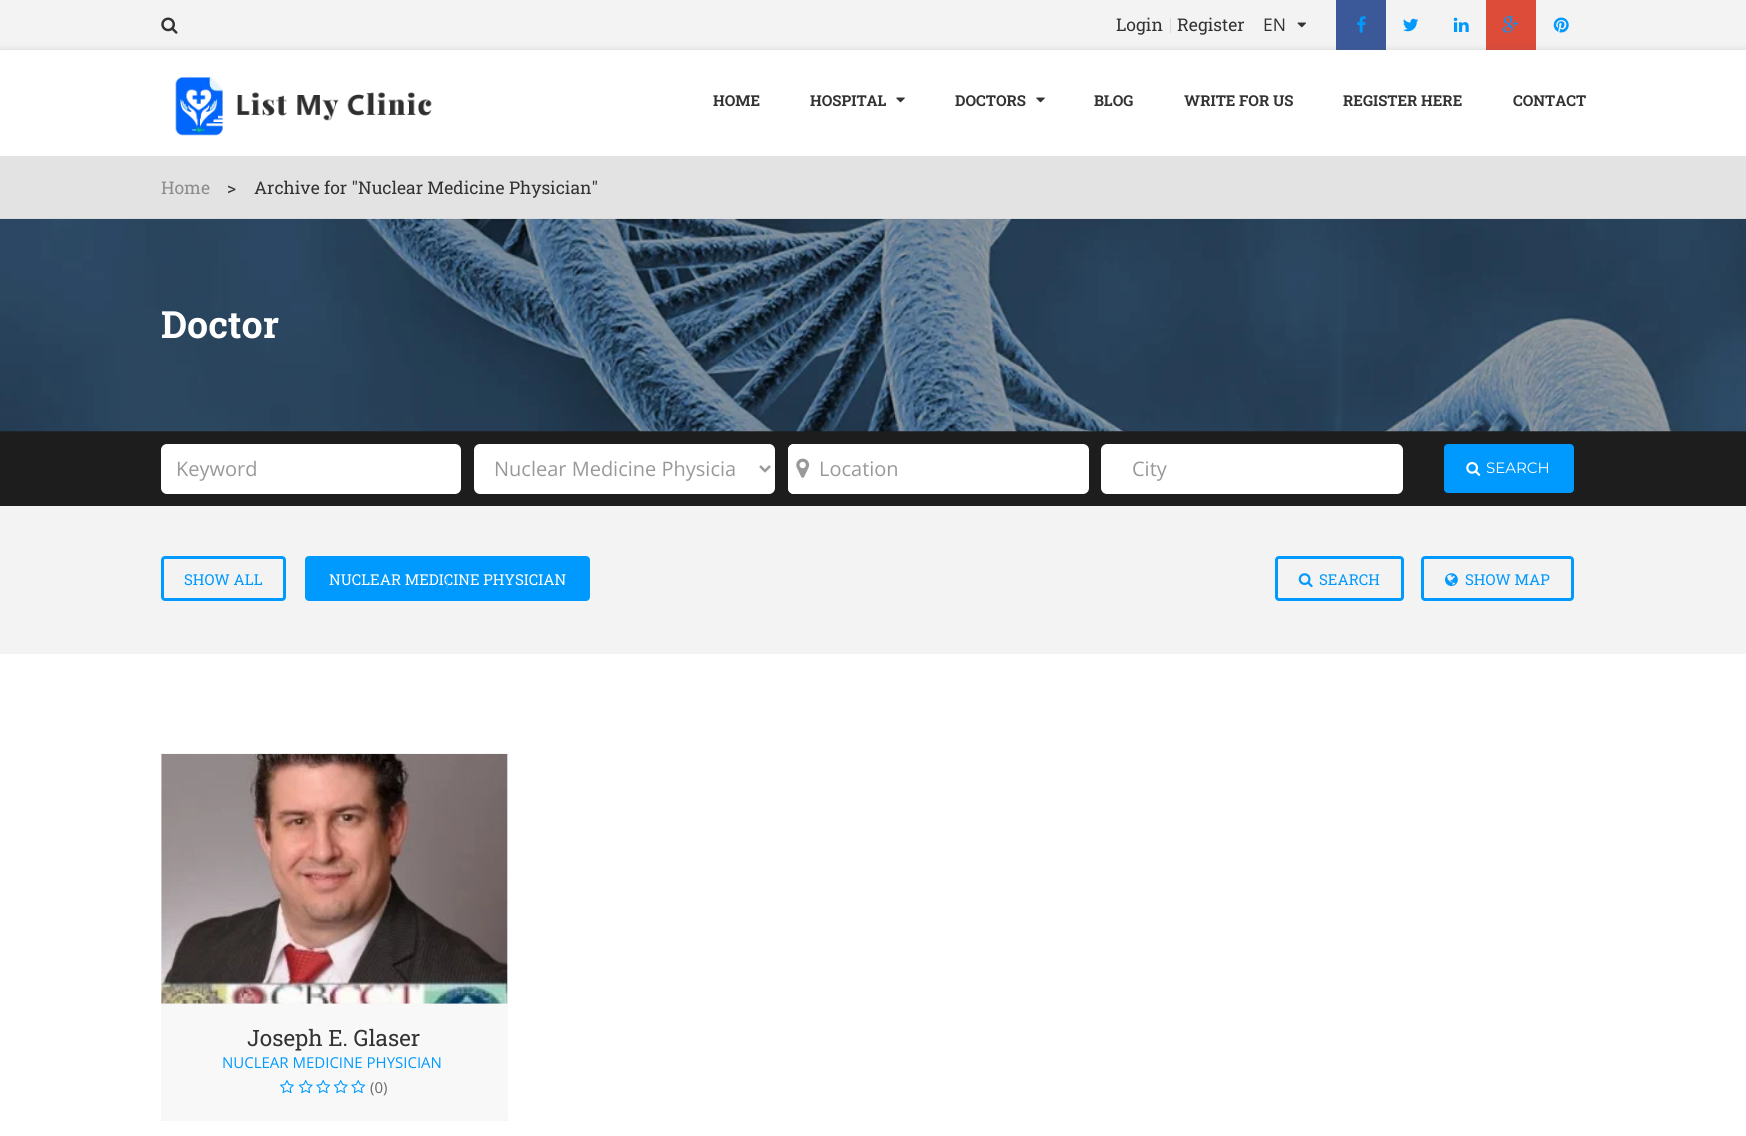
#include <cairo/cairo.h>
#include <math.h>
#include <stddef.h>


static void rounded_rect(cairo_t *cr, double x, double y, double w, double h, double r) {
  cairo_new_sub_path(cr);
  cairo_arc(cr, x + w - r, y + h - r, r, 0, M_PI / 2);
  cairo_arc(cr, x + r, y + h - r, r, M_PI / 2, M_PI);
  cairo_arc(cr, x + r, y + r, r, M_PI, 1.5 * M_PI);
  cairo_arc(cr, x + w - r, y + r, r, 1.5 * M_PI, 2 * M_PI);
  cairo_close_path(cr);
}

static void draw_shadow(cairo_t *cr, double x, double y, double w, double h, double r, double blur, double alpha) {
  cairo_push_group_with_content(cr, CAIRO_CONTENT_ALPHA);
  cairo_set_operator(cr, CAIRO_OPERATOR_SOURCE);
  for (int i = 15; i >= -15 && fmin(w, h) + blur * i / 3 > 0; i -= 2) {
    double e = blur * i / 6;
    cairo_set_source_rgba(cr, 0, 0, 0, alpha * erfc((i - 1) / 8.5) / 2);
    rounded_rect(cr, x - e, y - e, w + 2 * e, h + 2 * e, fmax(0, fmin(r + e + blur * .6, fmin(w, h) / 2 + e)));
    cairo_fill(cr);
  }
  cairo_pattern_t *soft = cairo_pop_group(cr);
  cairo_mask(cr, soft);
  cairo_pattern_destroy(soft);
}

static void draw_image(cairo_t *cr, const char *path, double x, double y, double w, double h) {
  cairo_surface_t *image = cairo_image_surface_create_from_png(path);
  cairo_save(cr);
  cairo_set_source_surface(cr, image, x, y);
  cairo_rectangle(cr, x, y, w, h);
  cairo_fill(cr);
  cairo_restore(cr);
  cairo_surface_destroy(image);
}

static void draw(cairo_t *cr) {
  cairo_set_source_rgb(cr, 243 / 255.0, 243 / 255.0, 243 / 255.0);
  cairo_paint(cr);
  draw_image(cr, "images/1.png", 161, 17, 17, 17);
  cairo_set_source_rgb(cr, 219 / 255.0, 219 / 255.0, 219 / 255.0);
  cairo_rectangle(cr, 1170, 18, 1, 15);
  cairo_fill(cr);
  draw_image(cr, "images/2.png", 1297, 22, 9, 6);
  cairo_set_source_rgb(cr, 59 / 255.0, 89 / 255.0, 153 / 255.0);
  cairo_rectangle(cr, 1336, 0, 50, 50);
  cairo_fill(cr);
  draw_image(cr, "images/3.png", 1357, 16, 9, 17);
  draw_image(cr, "images/4.png", 1403, 18, 16, 14);
  draw_image(cr, "images/5.png", 1453, 17, 16, 15);
  cairo_set_source_rgb(cr, 221 / 255.0, 75 / 255.0, 57 / 255.0);
  cairo_rectangle(cr, 1486, 0, 50, 50);
  cairo_fill(cr);
  draw_image(cr, "images/6.png", 1502, 16, 17, 17);
  draw_image(cr, "images/7.png", 1553, 17, 16, 16);
  cairo_set_source_rgb(cr, 77 / 255.0, 77 / 255.0, 77 / 255.0);
  draw_shadow(cr, 1, 50, 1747, 106, 0, 3, 0.2);
  cairo_set_source_rgb(cr, 1, 1, 1);
  cairo_rectangle(cr, 0, 50, 1746, 106);
  cairo_fill(cr);
  draw_image(cr, "images/8.png", 175, 77, 257, 59);
  draw_image(cr, "images/9.png", 896, 97, 9, 6);
  draw_image(cr, "images/9.png", 1036, 97, 9, 6);
  cairo_set_source_rgb(cr, 227 / 255.0, 227 / 255.0, 227 / 255.0);
  cairo_rectangle(cr, 0, 156, 1746, 63);
  cairo_fill(cr);
  cairo_set_source_rgb(cr, 29 / 255.0, 29 / 255.0, 29 / 255.0);
  cairo_rectangle(cr, 0, 431, 1746, 75);
  cairo_fill(cr);
  draw_image(cr, "images/10.png", 0, 218, 1746, 214);
  cairo_set_source_rgb(cr, 1, 1, 1);
  rounded_rect(cr, 161, 444, 300, 50, 6);
  cairo_fill(cr);
  rounded_rect(cr, 474, 444, 301, 50, 6);
  cairo_fill(cr);
  cairo_new_path(cr);
  cairo_move_to(cr, 760, 466);
  cairo_line_to(cr, 765, 471);
  cairo_line_to(cr, 770, 466);
  cairo_set_source_rgb(cr, 153 / 255.0, 153 / 255.0, 153 / 255.0);
  cairo_set_line_width(cr, 2.5);
  cairo_stroke(cr);
  cairo_set_source_rgb(cr, 1, 1, 1);
  rounded_rect(cr, 788, 444, 301, 50, 6);
  cairo_fill(cr);
  cairo_new_path(cr);
  cairo_move_to(cr, 794, 444);
  cairo_line_to(cr, 815, 444);
  cairo_curve_to(cr, 817, 444, 819, 446, 819, 448);
  cairo_line_to(cr, 819, 490);
  cairo_curve_to(cr, 819, 492, 817, 494, 815, 494);
  cairo_line_to(cr, 794, 494);
  cairo_curve_to(cr, 790.5, 494, 788, 491.5, 788, 488);
  cairo_line_to(cr, 788, 450);
  cairo_curve_to(cr, 788, 446.5, 790.5, 444, 794, 444);
  cairo_close_path(cr);
  cairo_fill(cr);
  draw_image(cr, "images/11.png", 796, 458, 14, 20);
  rounded_rect(cr, 1101, 444, 302, 50, 6);
  cairo_fill(cr);
  cairo_set_source_rgb(cr, 0, 153 / 255.0, 254 / 255.0);
  rounded_rect(cr, 1444, 444, 130, 49, 4);
  cairo_fill(cr);
  draw_image(cr, "images/12.png", 1466, 462, 15, 14);
  cairo_set_source_rgb(cr, 1, 1, 1);
  cairo_rectangle(cr, 0, 654, 1746, 482);
  cairo_fill(cr);
  rounded_rect(cr, 162.5, 557.5, 122, 42, 2.5);
  cairo_set_source_rgb(cr, 0, 153 / 255.0, 254 / 255.0);
  cairo_set_line_width(cr, 3);
  cairo_stroke(cr);
  rounded_rect(cr, 306.5, 557.5, 282, 42, 2.5);
  cairo_fill_preserve(cr);
  cairo_stroke(cr);
  rounded_rect(cr, 1276.5, 557.5, 126, 42, 2.5);
  cairo_stroke(cr);
  draw_image(cr, "images/13.png", 1298, 573, 15, 15);
  rounded_rect(cr, 1422.5, 557.5, 150, 42, 2.5);
  cairo_stroke(cr);
  draw_image(cr, "images/14.png", 1445, 573, 13, 14);
  cairo_set_source_rgb(cr, 243 / 255.0, 243 / 255.0, 243 / 255.0);
  cairo_rectangle(cr, 161, 754, 347, 367);
  cairo_fill(cr);
  draw_image(cr, "images/15.png", 161, 753, 347, 251);
  cairo_set_source_rgb(cr, 248 / 255.0, 248 / 255.0, 248 / 255.0);
  cairo_new_path(cr);
  cairo_move_to(cr, 161, 1004);
  cairo_line_to(cr, 508, 1004);
  cairo_line_to(cr, 508, 1117);
  cairo_curve_to(cr, 508, 1119, 506, 1121, 504, 1121);
  cairo_line_to(cr, 165, 1121);
  cairo_curve_to(cr, 163, 1121, 161, 1119, 161, 1117);
  cairo_close_path(cr);
  cairo_fill(cr);
  draw_image(cr, "images/16.png", 280, 1080, 14, 14);
  draw_image(cr, "images/17.png", 298, 1080, 15, 14);
  draw_image(cr, "images/18.png", 316, 1080, 15, 14);
  draw_image(cr, "images/17.png", 333, 1080, 15, 14);
  draw_image(cr, "images/18.png", 351, 1080, 15, 14);
  cairo_select_font_face(cr, "Roboto Slab", CAIRO_FONT_SLANT_NORMAL, CAIRO_FONT_WEIGHT_NORMAL);
  cairo_set_font_size(cr, 17.5);
  cairo_set_source_rgb(cr, 51 / 255.0, 51 / 255.0, 51 / 255.0);
  cairo_move_to(cr, 1116, 31);
  cairo_show_text(cr, "Login");
  cairo_move_to(cr, 1177, 31);
  cairo_show_text(cr, "Register");
  cairo_select_font_face(cr, "Open Sans", CAIRO_FONT_SLANT_NORMAL, CAIRO_FONT_WEIGHT_NORMAL);
  cairo_move_to(cr, 1263, 31);
  cairo_show_text(cr, "EN");
  cairo_select_font_face(cr, "Roboto Slab", CAIRO_FONT_SLANT_NORMAL, CAIRO_FONT_WEIGHT_BOLD);
  cairo_set_font_size(cr, 15);
  cairo_move_to(cr, 713, 106);
  cairo_show_text(cr, "HOME");
  cairo_move_to(cr, 810, 106);
  cairo_show_text(cr, "HOSPITAL");
  cairo_move_to(cr, 955, 106);
  cairo_show_text(cr, "DOCTORS");
  cairo_move_to(cr, 1094, 106);
  cairo_show_text(cr, "BLOG");
  cairo_move_to(cr, 1184, 106);
  cairo_show_text(cr, "WRITE FOR US");
  cairo_move_to(cr, 1343, 106);
  cairo_show_text(cr, "REGISTER HERE");
  cairo_move_to(cr, 1513, 106);
  cairo_show_text(cr, "CONTACT");
  cairo_select_font_face(cr, "Roboto Slab", CAIRO_FONT_SLANT_NORMAL, CAIRO_FONT_WEIGHT_NORMAL);
  cairo_set_font_size(cr, 17.5);
  cairo_set_source_rgb(cr, 140 / 255.0, 140 / 255.0, 140 / 255.0);
  cairo_move_to(cr, 161, 194);
  cairo_show_text(cr, "Home");
  cairo_set_source_rgb(cr, 51 / 255.0, 51 / 255.0, 51 / 255.0);
  cairo_move_to(cr, 227, 194);
  cairo_show_text(cr, ">");
  cairo_move_to(cr, 254, 194);
  cairo_show_text(cr, "Archive for \"Nuclear Medicine Physician\"");
  cairo_select_font_face(cr, "Roboto Slab", CAIRO_FONT_SLANT_NORMAL, CAIRO_FONT_WEIGHT_BOLD);
  cairo_set_font_size(cr, 37.5);
  cairo_set_source_rgb(cr, 1, 1, 1);
  cairo_move_to(cr, 161, 338);
  cairo_show_text(cr, "Doctor");
  cairo_select_font_face(cr, "Open Sans", CAIRO_FONT_SLANT_NORMAL, CAIRO_FONT_WEIGHT_NORMAL);
  cairo_set_font_size(cr, 20);
  cairo_set_source_rgb(cr, 153 / 255.0, 153 / 255.0, 153 / 255.0);
  cairo_move_to(cr, 176, 476);
  cairo_show_text(cr, "Keyword");
  cairo_move_to(cr, 494, 476);
  cairo_show_text(cr, "Nuclear Medicine Physicia");
  cairo_move_to(cr, 819, 476);
  cairo_show_text(cr, "Location");
  cairo_move_to(cr, 1132, 476);
  cairo_show_text(cr, "City");
  cairo_select_font_face(cr, "Montserrat", CAIRO_FONT_SLANT_NORMAL, CAIRO_FONT_WEIGHT_NORMAL);
  cairo_set_font_size(cr, 15);
  cairo_set_source_rgb(cr, 1, 1, 1);
  cairo_move_to(cr, 1486, 473);
  cairo_show_text(cr, "SEARCH");
  cairo_select_font_face(cr, "Roboto Slab", CAIRO_FONT_SLANT_NORMAL, CAIRO_FONT_WEIGHT_NORMAL);
  cairo_set_source_rgb(cr, 0, 153 / 255.0, 254 / 255.0);
  cairo_move_to(cr, 184, 585);
  cairo_show_text(cr, "SHOW ALL");
  cairo_set_source_rgb(cr, 1, 1, 1);
  cairo_move_to(cr, 329, 585);
  cairo_show_text(cr, "NUCLEAR MEDICINE PHYSICIAN");
  cairo_select_font_face(cr, "Open Sans", CAIRO_FONT_SLANT_NORMAL, CAIRO_FONT_WEIGHT_NORMAL);
  cairo_set_font_size(cr, 14);
  cairo_set_source_rgb(cr, 45 / 255.0, 171 / 255.0, 254 / 255.0);
  cairo_move_to(cr, 443, 588);
  cairo_show_text(cr, "1");
  cairo_select_font_face(cr, "Roboto Slab", CAIRO_FONT_SLANT_NORMAL, CAIRO_FONT_WEIGHT_NORMAL);
  cairo_set_font_size(cr, 15);
  cairo_set_source_rgb(cr, 0, 153 / 255.0, 254 / 255.0);
  cairo_move_to(cr, 1319, 585);
  cairo_show_text(cr, "SEARCH");
  cairo_move_to(cr, 1465, 585);
  cairo_show_text(cr, "SHOW MAP");
  cairo_set_font_size(cr, 22.5);
  cairo_set_source_rgb(cr, 51 / 255.0, 51 / 255.0, 51 / 255.0);
  cairo_move_to(cr, 247, 1046);
  cairo_show_text(cr, "Joseph E. Glaser");
  cairo_select_font_face(cr, "Open Sans", CAIRO_FONT_SLANT_NORMAL, CAIRO_FONT_WEIGHT_NORMAL);
  cairo_set_font_size(cr, 15);
  cairo_set_source_rgb(cr, 0, 153 / 255.0, 254 / 255.0);
  cairo_move_to(cr, 222, 1068);
  cairo_show_text(cr, "NUCLEAR MEDICINE PHYSICIAN");
  cairo_set_source_rgb(cr, 102 / 255.0, 102 / 255.0, 102 / 255.0);
  cairo_move_to(cr, 370, 1093);
  cairo_show_text(cr, "(0)");
}

int main(void) {
  cairo_surface_t *surface = cairo_image_surface_create(CAIRO_FORMAT_RGB24, 1746, 1136);
  cairo_t *cr = cairo_create(surface);
  cairo_font_options_t *options = cairo_font_options_create();
  cairo_font_options_set_hint_metrics(options, CAIRO_HINT_METRICS_OFF);
  cairo_font_options_set_hint_style(options, CAIRO_HINT_STYLE_NONE);
  cairo_set_font_options(cr, options);
  cairo_set_miter_limit(cr, 4);
  draw(cr);
  cairo_surface_write_to_png(surface, "out.png");
  cairo_font_options_destroy(options);
  cairo_destroy(cr);
  cairo_surface_destroy(surface);
  return 0;
}
